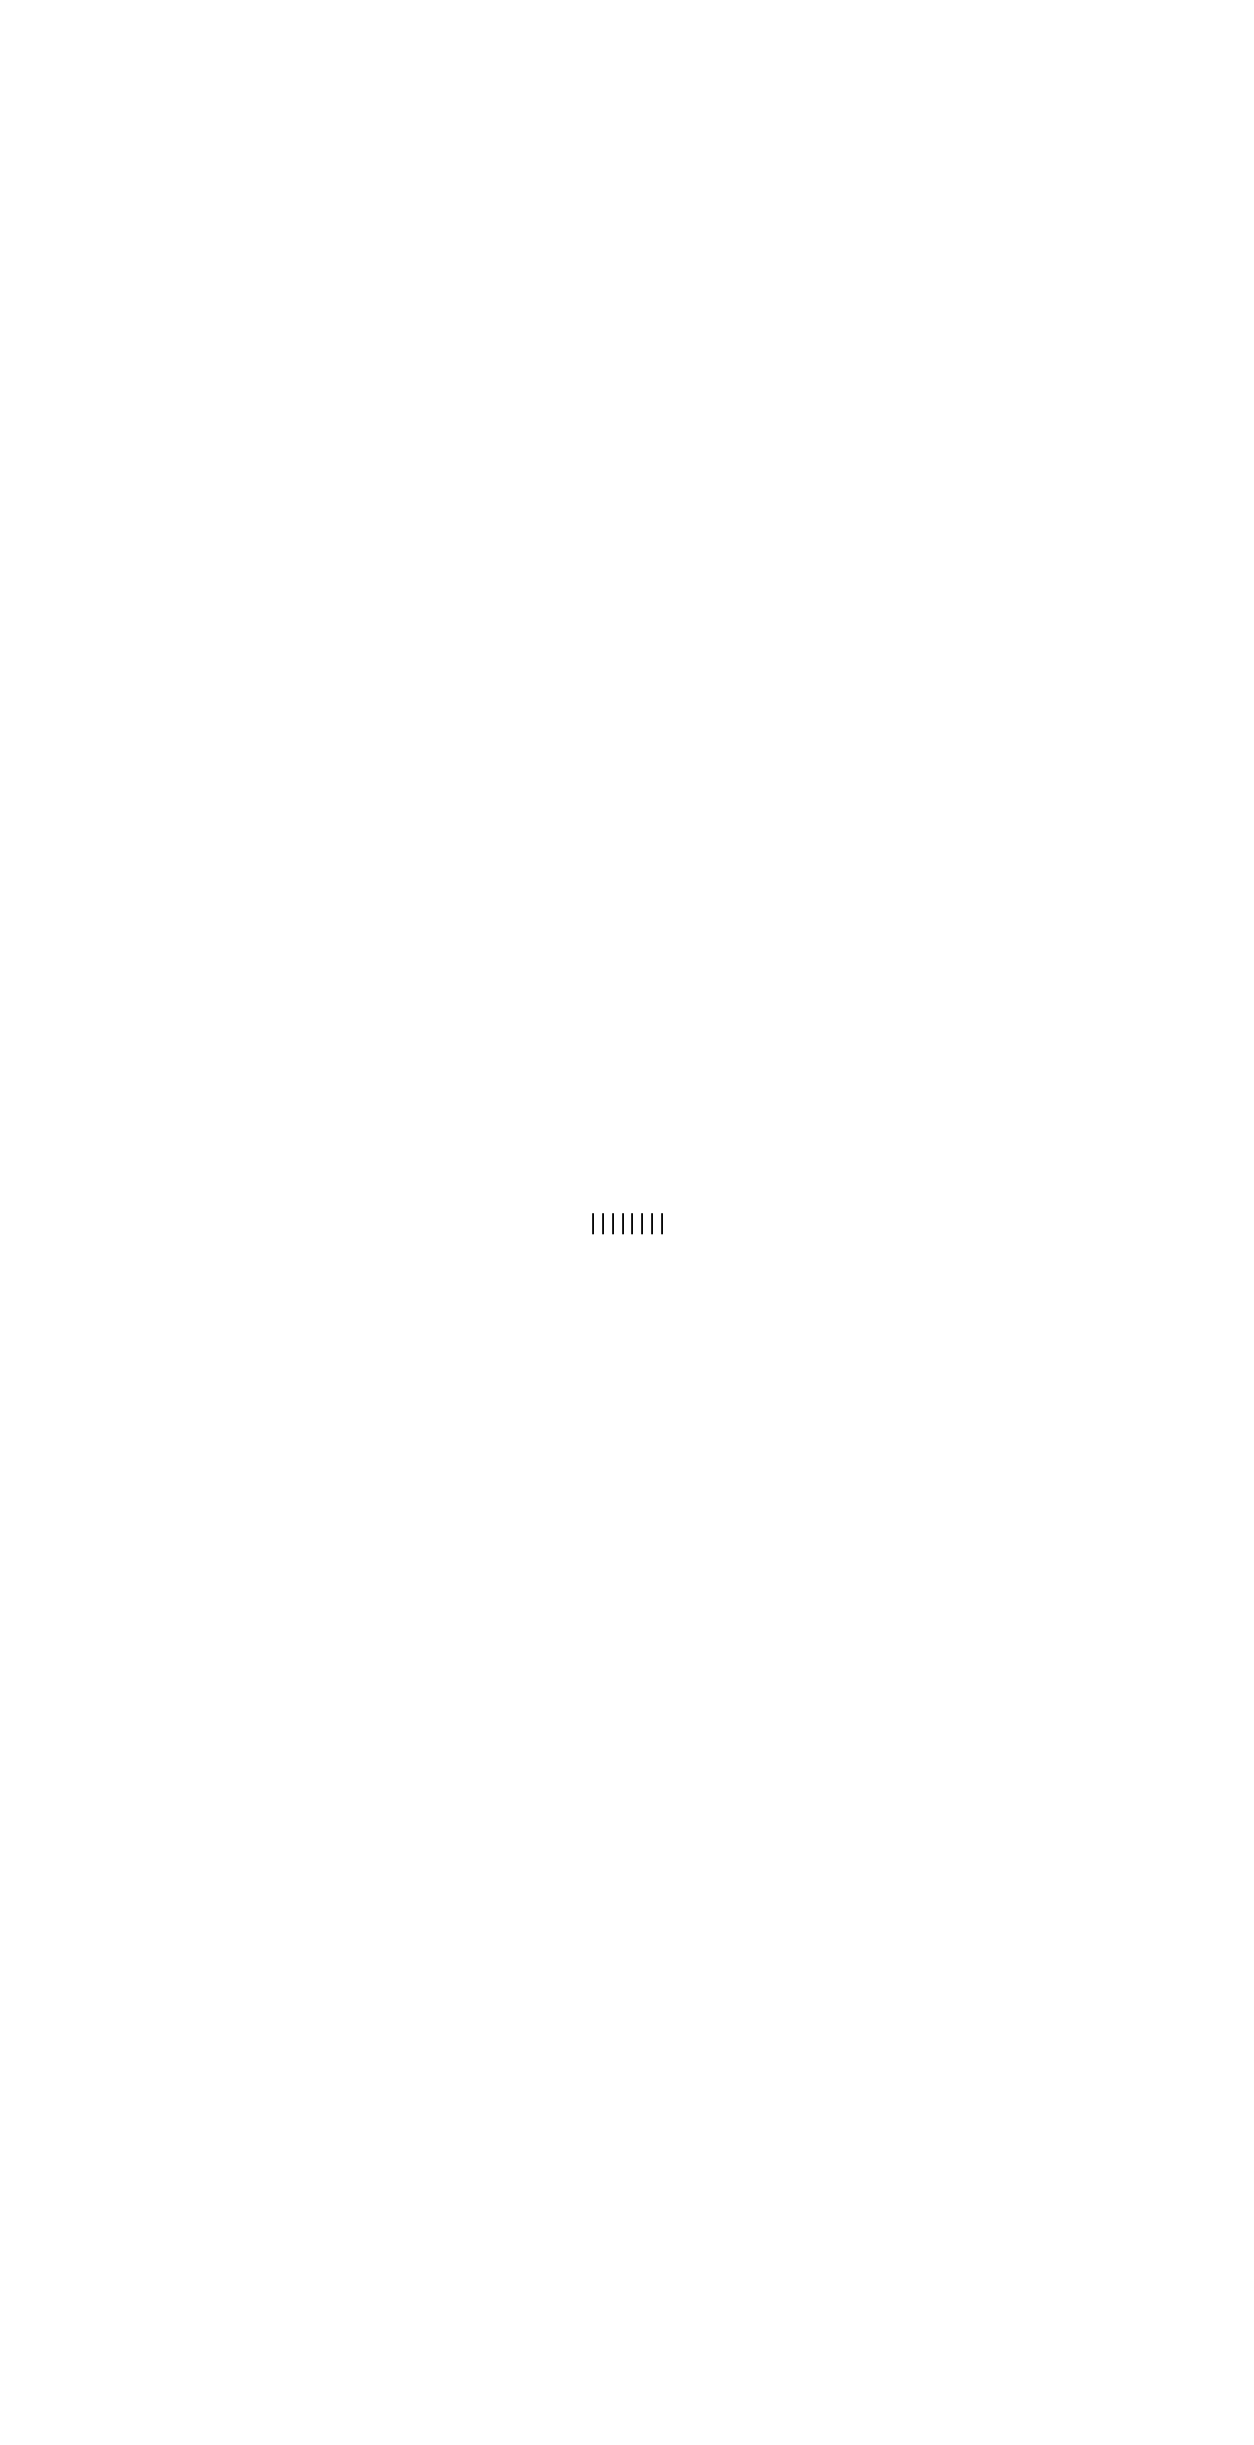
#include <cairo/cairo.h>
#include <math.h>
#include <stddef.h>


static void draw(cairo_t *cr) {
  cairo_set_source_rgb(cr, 1, 1, 1);
  cairo_paint(cr);
  cairo_select_font_face(cr, "Roboto", CAIRO_FONT_SLANT_NORMAL, CAIRO_FONT_WEIGHT_NORMAL);
  cairo_set_font_size(cr, 25);
  cairo_set_source_rgb(cr, 0, 0, 0);
  cairo_move_to(cr, 590, 1231);
  cairo_show_text(cr, "|");
  cairo_move_to(cr, 600, 1231);
  cairo_show_text(cr, "|");
  cairo_move_to(cr, 610, 1231);
  cairo_show_text(cr, "|");
  cairo_move_to(cr, 620, 1231);
  cairo_show_text(cr, "|");
  cairo_move_to(cr, 629, 1231);
  cairo_show_text(cr, "|");
  cairo_move_to(cr, 639, 1231);
  cairo_show_text(cr, "|");
  cairo_move_to(cr, 649, 1231);
  cairo_show_text(cr, "|");
  cairo_move_to(cr, 659, 1231);
  cairo_show_text(cr, "|");
}

int main(void) {
  cairo_surface_t *surface = cairo_image_surface_create(CAIRO_FORMAT_RGB24, 1254, 2445);
  cairo_t *cr = cairo_create(surface);
  cairo_font_options_t *options = cairo_font_options_create();
  cairo_font_options_set_hint_metrics(options, CAIRO_HINT_METRICS_OFF);
  cairo_font_options_set_hint_style(options, CAIRO_HINT_STYLE_NONE);
  cairo_set_font_options(cr, options);
  cairo_set_miter_limit(cr, 4);
  draw(cr);
  cairo_surface_write_to_png(surface, "out.png");
  cairo_font_options_destroy(options);
  cairo_destroy(cr);
  cairo_surface_destroy(surface);
  return 0;
}
